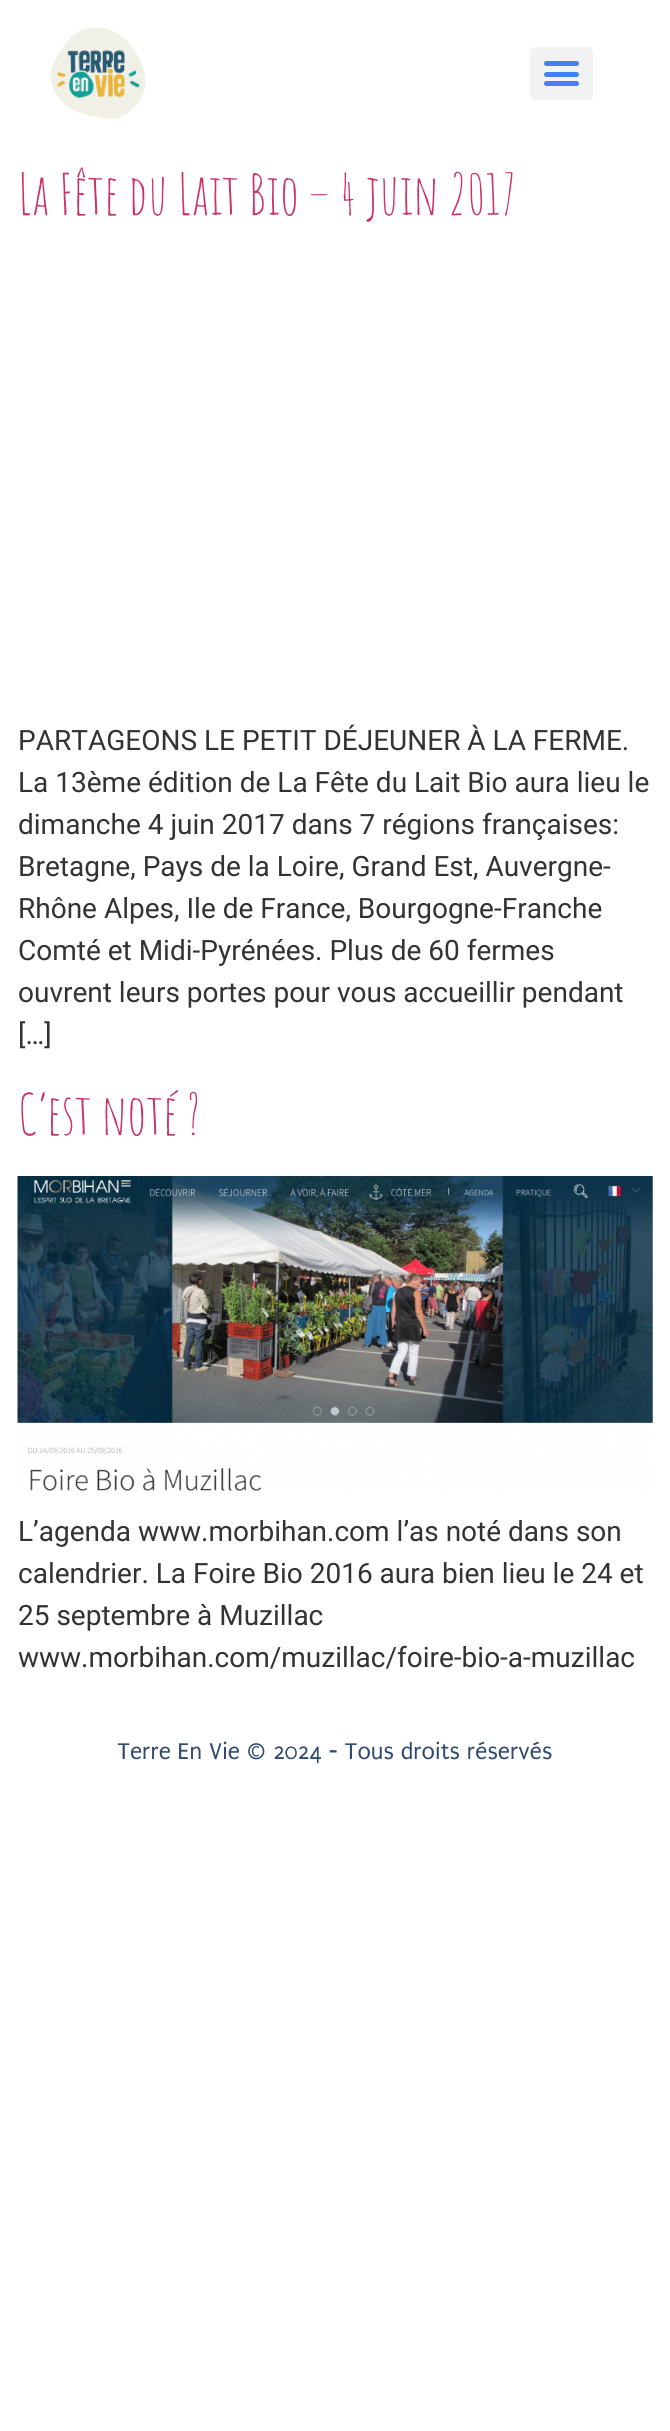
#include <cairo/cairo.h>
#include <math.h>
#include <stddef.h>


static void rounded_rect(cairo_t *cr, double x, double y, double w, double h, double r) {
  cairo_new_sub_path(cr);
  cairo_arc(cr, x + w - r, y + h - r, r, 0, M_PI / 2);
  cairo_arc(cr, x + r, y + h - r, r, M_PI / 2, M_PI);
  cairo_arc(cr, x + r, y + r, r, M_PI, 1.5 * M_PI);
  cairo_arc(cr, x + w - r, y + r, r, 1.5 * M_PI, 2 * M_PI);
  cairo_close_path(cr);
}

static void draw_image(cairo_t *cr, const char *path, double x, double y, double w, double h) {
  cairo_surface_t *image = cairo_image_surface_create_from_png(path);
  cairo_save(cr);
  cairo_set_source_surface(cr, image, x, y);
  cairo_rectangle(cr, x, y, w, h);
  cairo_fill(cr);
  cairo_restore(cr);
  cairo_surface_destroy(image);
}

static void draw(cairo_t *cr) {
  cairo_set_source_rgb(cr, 1, 1, 1);
  cairo_paint(cr);
  draw_image(cr, "images/1.png", 50, 28, 96, 91);
  cairo_set_source_rgb(cr, 242 / 255.0, 242 / 255.0, 242 / 255.0);
  rounded_rect(cr, 530, 47, 63, 53, 5);
  cairo_fill(cr);
  cairo_set_source_rgb(cr, 70 / 255.0, 127 / 255.0, 247 / 255.0);
  rounded_rect(cr, 544, 72, 35, 5, 2.5);
  cairo_fill(cr);
  rounded_rect(cr, 544, 61, 35, 5, 2.5);
  cairo_fill(cr);
  rounded_rect(cr, 544, 81, 35, 5, 2.5);
  cairo_fill(cr);
  draw_image(cr, "images/2.png", 17, 1176, 636, 316);
  cairo_select_font_face(cr, "Amatic SC", CAIRO_FONT_SLANT_NORMAL, CAIRO_FONT_WEIGHT_NORMAL);
  cairo_set_font_size(cr, 56);
  cairo_set_source_rgb(cr, 204 / 255.0, 51 / 255.0, 102 / 255.0);
  cairo_move_to(cr, 18, 215);
  cairo_show_text(cr, "La Fête du Lait Bio – 4 juin 2017");
  cairo_select_font_face(cr, "Roboto", CAIRO_FONT_SLANT_NORMAL, CAIRO_FONT_WEIGHT_NORMAL);
  cairo_set_font_size(cr, 28);
  cairo_set_source_rgb(cr, 51 / 255.0, 51 / 255.0, 51 / 255.0);
  cairo_move_to(cr, 18, 750);
  cairo_show_text(cr, "PARTAGEONS LE PETIT DÉJEUNER À LA FERME.");
  cairo_move_to(cr, 18, 792);
  cairo_show_text(cr, "La 13ème édition de La Fête du Lait Bio aura lieu le");
  cairo_move_to(cr, 18, 834);
  cairo_show_text(cr, "dimanche 4 juin 2017 dans 7 régions françaises:");
  cairo_move_to(cr, 18, 876);
  cairo_show_text(cr, "Bretagne, Pays de la Loire, Grand Est, Auvergne-");
  cairo_move_to(cr, 18, 918);
  cairo_show_text(cr, "Rhône Alpes, Ile de France, Bourgogne-Franche");
  cairo_move_to(cr, 18, 960);
  cairo_show_text(cr, "Comté et Midi-Pyrénées. Plus de 60 fermes");
  cairo_move_to(cr, 18, 1002);
  cairo_show_text(cr, "ouvrent leurs portes pour vous accueillir pendant");
  cairo_move_to(cr, 18, 1044);
  cairo_show_text(cr, "[…]");
  cairo_select_font_face(cr, "Amatic SC", CAIRO_FONT_SLANT_NORMAL, CAIRO_FONT_WEIGHT_NORMAL);
  cairo_set_font_size(cr, 56);
  cairo_set_source_rgb(cr, 204 / 255.0, 51 / 255.0, 102 / 255.0);
  cairo_move_to(cr, 18, 1135);
  cairo_show_text(cr, "C’est noté ?");
  cairo_select_font_face(cr, "Roboto", CAIRO_FONT_SLANT_NORMAL, CAIRO_FONT_WEIGHT_NORMAL);
  cairo_set_font_size(cr, 28);
  cairo_set_source_rgb(cr, 51 / 255.0, 51 / 255.0, 51 / 255.0);
  cairo_move_to(cr, 18, 1541);
  cairo_show_text(cr, "L’agenda www.morbihan.com l’as noté dans son");
  cairo_move_to(cr, 18, 1583);
  cairo_show_text(cr, "calendrier. La Foire Bio 2016 aura bien lieu le 24 et");
  cairo_move_to(cr, 18, 1625);
  cairo_show_text(cr, "25 septembre à Muzillac");
  cairo_move_to(cr, 18, 1667);
  cairo_show_text(cr, "www.morbihan.com/muzillac/foire-bio-a-muzillac");
  cairo_select_font_face(cr, "Puritan", CAIRO_FONT_SLANT_NORMAL, CAIRO_FONT_WEIGHT_NORMAL);
  cairo_set_font_size(cr, 24.5);
  cairo_set_source_rgb(cr, 50 / 255.0, 74 / 255.0, 109 / 255.0);
  cairo_move_to(cr, 117, 1759);
  cairo_show_text(cr, "Terre En Vie © 2024 - Tous droits réservés");
}

int main(void) {
  cairo_surface_t *surface = cairo_image_surface_create(CAIRO_FORMAT_RGB24, 670, 2431);
  cairo_t *cr = cairo_create(surface);
  cairo_font_options_t *options = cairo_font_options_create();
  cairo_font_options_set_hint_metrics(options, CAIRO_HINT_METRICS_OFF);
  cairo_font_options_set_hint_style(options, CAIRO_HINT_STYLE_NONE);
  cairo_set_font_options(cr, options);
  cairo_set_miter_limit(cr, 4);
  draw(cr);
  cairo_surface_write_to_png(surface, "out.png");
  cairo_font_options_destroy(options);
  cairo_destroy(cr);
  cairo_surface_destroy(surface);
  return 0;
}
